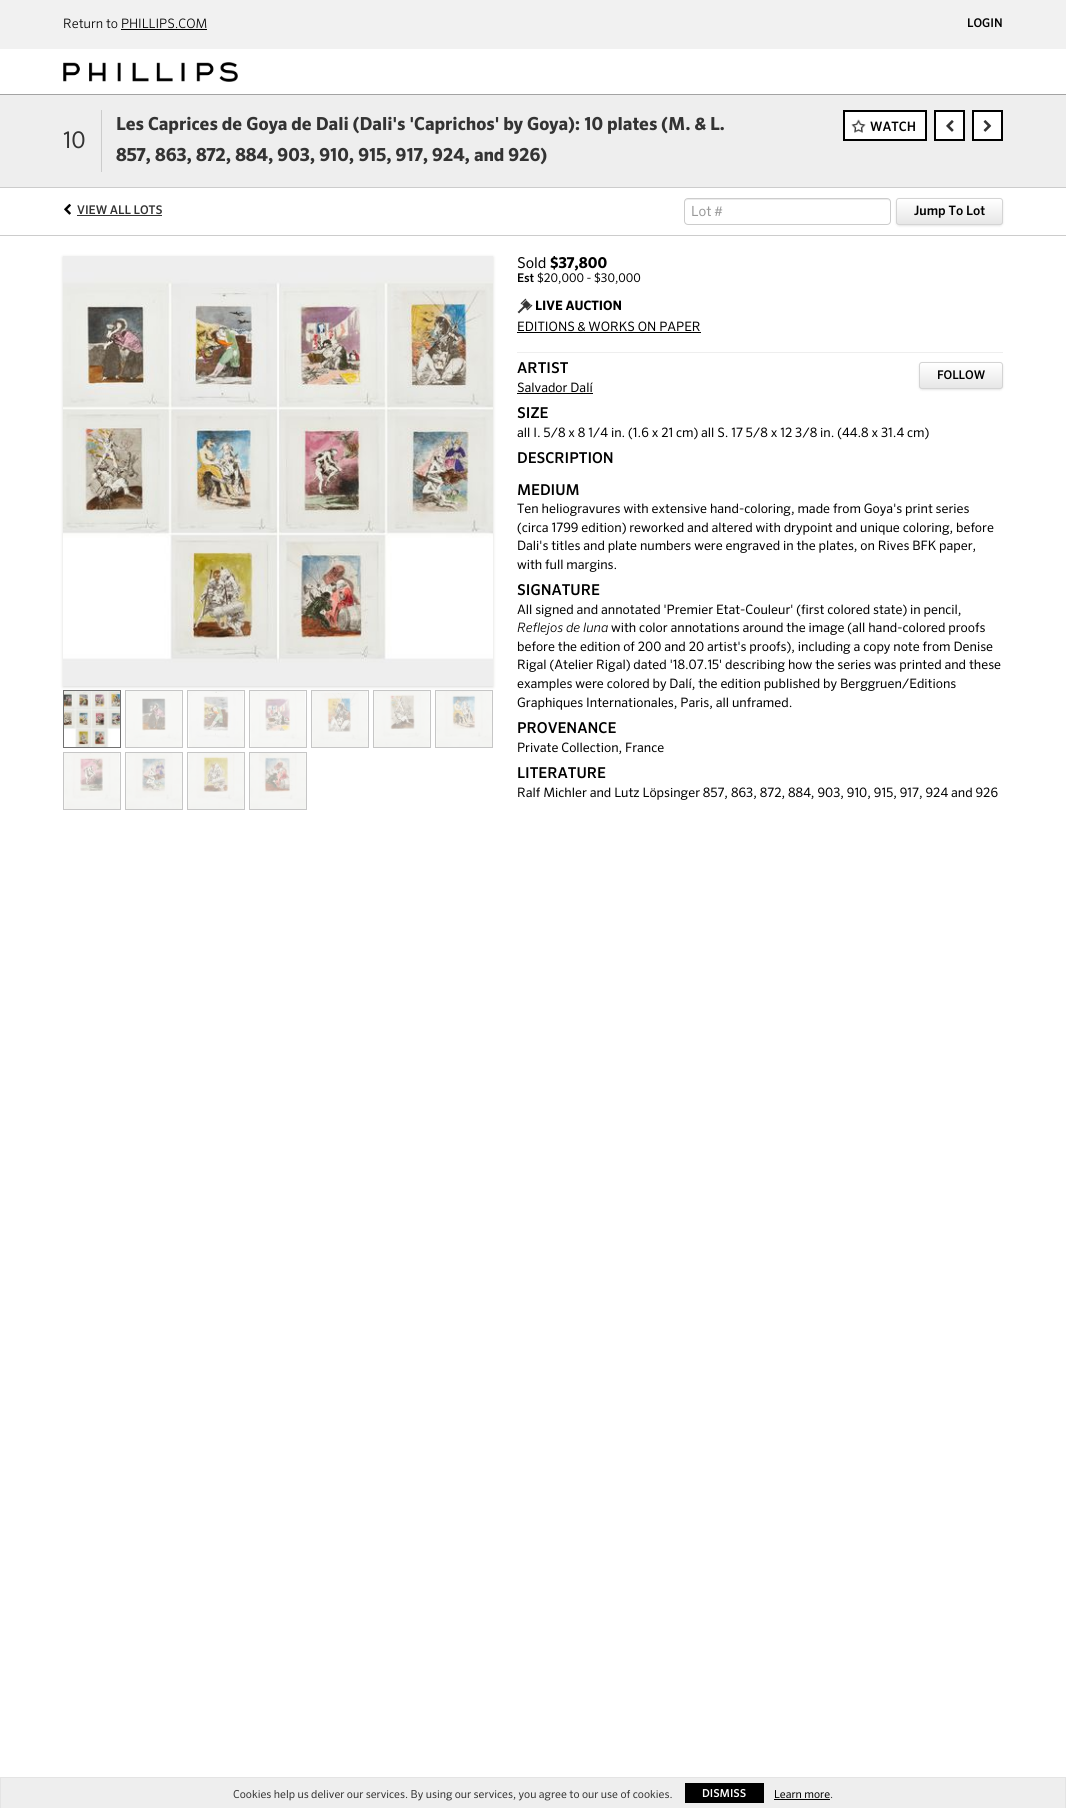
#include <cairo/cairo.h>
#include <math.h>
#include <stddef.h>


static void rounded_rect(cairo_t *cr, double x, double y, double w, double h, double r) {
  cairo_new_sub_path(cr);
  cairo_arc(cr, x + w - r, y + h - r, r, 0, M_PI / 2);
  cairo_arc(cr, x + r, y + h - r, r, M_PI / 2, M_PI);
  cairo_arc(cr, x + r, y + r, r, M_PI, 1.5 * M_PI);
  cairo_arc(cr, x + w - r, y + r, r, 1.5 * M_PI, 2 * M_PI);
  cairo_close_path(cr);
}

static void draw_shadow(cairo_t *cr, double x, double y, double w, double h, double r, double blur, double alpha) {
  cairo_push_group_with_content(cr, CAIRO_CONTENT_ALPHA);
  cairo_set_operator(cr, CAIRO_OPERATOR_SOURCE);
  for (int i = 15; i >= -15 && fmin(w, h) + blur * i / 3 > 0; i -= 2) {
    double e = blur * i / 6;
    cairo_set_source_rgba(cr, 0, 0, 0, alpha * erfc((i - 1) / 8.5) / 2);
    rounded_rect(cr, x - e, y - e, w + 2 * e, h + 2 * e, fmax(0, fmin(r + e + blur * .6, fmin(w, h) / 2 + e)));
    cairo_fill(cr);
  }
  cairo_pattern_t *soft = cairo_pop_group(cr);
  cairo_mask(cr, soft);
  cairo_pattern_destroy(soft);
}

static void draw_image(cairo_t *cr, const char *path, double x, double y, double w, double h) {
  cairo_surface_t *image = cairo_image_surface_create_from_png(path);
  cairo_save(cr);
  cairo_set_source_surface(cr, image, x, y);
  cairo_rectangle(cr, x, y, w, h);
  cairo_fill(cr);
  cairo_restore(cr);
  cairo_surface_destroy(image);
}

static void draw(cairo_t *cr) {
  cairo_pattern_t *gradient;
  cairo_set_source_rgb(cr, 1, 1, 1);
  cairo_paint(cr);
  cairo_set_source_rgb(cr, 163 / 255.0, 163 / 255.0, 163 / 255.0);
  cairo_rectangle(cr, 0, 94, 1066, 1);
  cairo_fill(cr);
  cairo_set_source_rgb(cr, 241 / 255.0, 241 / 255.0, 241 / 255.0);
  cairo_rectangle(cr, 0, 0, 1066, 49);
  cairo_fill(cr);
  cairo_set_source_rgb(cr, 0, 0, 0);
  cairo_rectangle(cr, 121, 29, 86, 1);
  cairo_fill(cr);
  draw_image(cr, "images/1.png", 63, 62, 175, 20);
  cairo_set_source_rgb(cr, 238 / 255.0, 238 / 255.0, 238 / 255.0);
  cairo_rectangle(cr, 0, 95, 1066, 92);
  cairo_fill(cr);
  cairo_set_source_rgb(cr, 204 / 255.0, 204 / 255.0, 204 / 255.0);
  cairo_rectangle(cr, 0, 187, 1066, 1);
  cairo_fill(cr);
  cairo_rectangle(cr, 101, 110, 1, 62);
  cairo_fill(cr);
  cairo_set_source_rgb(cr, 1, 1, 1);
  cairo_rectangle(cr, 844, 111, 82, 29);
  cairo_fill_preserve(cr);
  cairo_set_source_rgb(cr, 0, 0, 0);
  cairo_stroke(cr);
  draw_image(cr, "images/2.png", 851, 119, 15, 14);
  cairo_set_source_rgb(cr, 1, 1, 1);
  cairo_rectangle(cr, 935, 111, 29, 29);
  cairo_fill_preserve(cr);
  cairo_set_source_rgb(cr, 0, 0, 0);
  cairo_stroke(cr);
  draw_image(cr, "images/3.png", 946, 120, 8, 12);
  cairo_set_source_rgb(cr, 1, 1, 1);
  cairo_rectangle(cr, 973, 111, 29, 29);
  cairo_fill_preserve(cr);
  cairo_set_source_rgb(cr, 0, 0, 0);
  cairo_stroke(cr);
  draw_image(cr, "images/4.png", 983, 120, 9, 12);
  draw_image(cr, "images/5.png", 64, 203, 7, 12);
  cairo_set_source_rgb(cr, 51 / 255.0, 51 / 255.0, 51 / 255.0);
  cairo_rectangle(cr, 77, 215, 85, 1);
  cairo_fill(cr);
  cairo_set_source_rgb(cr, 236 / 255.0, 236 / 255.0, 236 / 255.0);
  cairo_new_path(cr);
  cairo_move_to(cr, 688, 200);
  cairo_line_to(cr, 887, 200);
  cairo_curve_to(cr, 889, 200, 890, 201, 890, 203);
  cairo_curve_to(cr, 890, 201, 889, 199, 887, 199);
  cairo_line_to(cr, 688, 199);
  cairo_curve_to(cr, 686, 199, 685, 201, 685, 203);
  cairo_curve_to(cr, 685, 201, 686, 200, 688, 200);
  cairo_close_path(cr);
  cairo_fill(cr);
  rounded_rect(cr, 684.5, 198.5, 206, 26, 3.5);
  cairo_set_source_rgb(cr, 204 / 255.0, 204 / 255.0, 204 / 255.0);
  cairo_set_line_width(cr, 1);
  cairo_stroke(cr);
  cairo_set_source_rgb(cr, 0, 0, 0);
  draw_shadow(cr, 897, 200, 105, 25, 2, 1.5, 0.2);
  cairo_save(cr);
  rounded_rect(cr, 896, 198, 107, 27, 3);
  cairo_clip(cr);
  gradient = cairo_pattern_create_linear(950, 199, 950, 224);
  cairo_pattern_add_color_stop_rgba(gradient, 0, 1, 1, 1, 1);
  cairo_pattern_add_color_stop_rgba(gradient, 1, 230 / 255.0, 230 / 255.0, 230 / 255.0, 1);
  cairo_set_source(cr, gradient);
  cairo_pattern_destroy(gradient);
  cairo_rectangle(cr, 896, 199, 107, 25);
  cairo_fill(cr);
  cairo_restore(cr);
  rounded_rect(cr, 896.5, 198.5, 106, 26, 2.5);
  cairo_set_source_rgb(cr, 212 / 255.0, 212 / 255.0, 212 / 255.0);
  cairo_stroke(cr);
  cairo_set_source_rgb(cr, 204 / 255.0, 204 / 255.0, 204 / 255.0);
  cairo_rectangle(cr, 0, 235, 1066, 1);
  cairo_fill(cr);
  cairo_set_source_rgb(cr, 218 / 255.0, 217 / 255.0, 215 / 255.0);
  draw_shadow(cr, 63, 257, 430, 430, 0, 1.5, 1);
  draw_image(cr, "images/6.png", 63, 256, 430, 430);
  cairo_rectangle(cr, 63.5, 690.5, 57, 57);
  cairo_set_source_rgb(cr, 113 / 255.0, 113 / 255.0, 113 / 255.0);
  cairo_stroke(cr);
  cairo_rectangle(cr, 125.5, 690.5, 57, 57);
  cairo_set_source_rgb(cr, 198 / 255.0, 198 / 255.0, 198 / 255.0);
  cairo_stroke(cr);
  cairo_rectangle(cr, 187.5, 690.5, 57, 57);
  cairo_stroke(cr);
  cairo_rectangle(cr, 249.5, 690.5, 57, 57);
  cairo_stroke(cr);
  cairo_rectangle(cr, 311.5, 690.5, 57, 57);
  cairo_stroke(cr);
  cairo_rectangle(cr, 373.5, 690.5, 57, 57);
  cairo_stroke(cr);
  cairo_rectangle(cr, 435.5, 690.5, 57, 57);
  cairo_stroke(cr);
  draw_image(cr, "images/7.png", 64, 691, 56, 56);
  draw_image(cr, "images/8.png", 126, 691, 56, 56);
  draw_image(cr, "images/9.png", 188, 691, 56, 56);
  draw_image(cr, "images/10.png", 250, 691, 56, 56);
  draw_image(cr, "images/11.png", 312, 691, 56, 56);
  draw_image(cr, "images/12.png", 374, 691, 56, 56);
  draw_image(cr, "images/13.png", 436, 691, 56, 56);
  cairo_rectangle(cr, 63.5, 752.5, 57, 57);
  cairo_stroke(cr);
  cairo_rectangle(cr, 125.5, 752.5, 57, 57);
  cairo_stroke(cr);
  cairo_rectangle(cr, 187.5, 752.5, 57, 57);
  cairo_stroke(cr);
  cairo_rectangle(cr, 249.5, 752.5, 57, 57);
  cairo_stroke(cr);
  draw_image(cr, "images/14.png", 64, 753, 56, 56);
  draw_image(cr, "images/15.png", 126, 753, 56, 56);
  draw_image(cr, "images/16.png", 188, 753, 56, 56);
  draw_image(cr, "images/17.png", 250, 753, 56, 56);
  draw_image(cr, "images/18.png", 517, 298, 16, 16);
  cairo_set_source_rgb(cr, 0, 0, 0);
  cairo_rectangle(cr, 517, 332, 184, 1);
  cairo_fill(cr);
  cairo_set_source_rgb(cr, 238 / 255.0, 238 / 255.0, 238 / 255.0);
  cairo_rectangle(cr, 517, 352, 486, 1);
  cairo_fill(cr);
  cairo_set_source_rgb(cr, 0, 0, 0);
  draw_shadow(cr, 920, 364, 82, 25, 2, 1.5, 0.2);
  cairo_save(cr);
  rounded_rect(cr, 919, 362, 84, 27, 3);
  cairo_clip(cr);
  gradient = cairo_pattern_create_linear(961, 363, 961, 388);
  cairo_pattern_add_color_stop_rgba(gradient, 0, 1, 1, 1, 1);
  cairo_pattern_add_color_stop_rgba(gradient, 1, 230 / 255.0, 230 / 255.0, 230 / 255.0, 1);
  cairo_set_source(cr, gradient);
  cairo_pattern_destroy(gradient);
  cairo_rectangle(cr, 919, 363, 84, 25);
  cairo_fill(cr);
  cairo_restore(cr);
  cairo_set_source_rgba(cr, 1, 1, 1, 0.4);
  cairo_new_path(cr);
  cairo_move_to(cr, 922, 364);
  cairo_line_to(cr, 1000, 364);
  cairo_curve_to(cr, 1001, 364, 1002, 365, 1002, 366);
  cairo_curve_to(cr, 1002, 359, 990, 363, 987, 363);
  cairo_line_to(cr, 935, 363);
  cairo_curve_to(cr, 932, 363, 920, 359, 920, 366);
  cairo_curve_to(cr, 920, 365, 921, 364, 922, 364);
  cairo_close_path(cr);
  cairo_fill(cr);
  rounded_rect(cr, 919.5, 362.5, 83, 26, 2.5);
  cairo_set_source_rgb(cr, 212 / 255.0, 212 / 255.0, 212 / 255.0);
  cairo_stroke(cr);
  cairo_set_source_rgb(cr, 0, 0, 0);
  cairo_rectangle(cr, 517, 393, 76, 1);
  cairo_fill(cr);
  cairo_set_source_rgb(cr, 238 / 255.0, 238 / 255.0, 238 / 255.0);
  cairo_rectangle(cr, 1, 1778, 1064, 30);
  cairo_fill(cr);
  cairo_set_source_rgb(cr, 228 / 255.0, 228 / 255.0, 228 / 255.0);
  cairo_rectangle(cr, 0, 1777, 1066, 1);
  cairo_fill(cr);
  cairo_rectangle(cr, 1065, 1777, 1, 31);
  cairo_fill(cr);
  cairo_rectangle(cr, 0, 1777, 1, 31);
  cairo_fill(cr);
  cairo_set_source_rgb(cr, 0, 0, 0);
  cairo_rectangle(cr, 685, 1783, 79, 20);
  cairo_fill(cr);
  cairo_rectangle(cr, 774, 1799, 56, 1);
  cairo_fill(cr);
  cairo_select_font_face(cr, "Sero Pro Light", CAIRO_FONT_SLANT_NORMAL, CAIRO_FONT_WEIGHT_NORMAL);
  cairo_set_font_size(cr, 13);
  cairo_move_to(cr, 63, 28);
  cairo_show_text(cr, "Return to PHILLIPS.COM");
  cairo_select_font_face(cr, "Sero Pro Medium", CAIRO_FONT_SLANT_NORMAL, CAIRO_FONT_WEIGHT_NORMAL);
  cairo_set_font_size(cr, 12);
  cairo_move_to(cr, 967, 27);
  cairo_show_text(cr, "LOGIN");
  cairo_select_font_face(cr, "Sero Pro", CAIRO_FONT_SLANT_NORMAL, CAIRO_FONT_WEIGHT_NORMAL);
  cairo_set_font_size(cr, 23);
  cairo_set_source_rgb(cr, 51 / 255.0, 51 / 255.0, 51 / 255.0);
  cairo_move_to(cr, 63, 148);
  cairo_show_text(cr, "10");
  cairo_select_font_face(cr, "Sero Pro", CAIRO_FONT_SLANT_NORMAL, CAIRO_FONT_WEIGHT_BOLD);
  cairo_set_font_size(cr, 18);
  cairo_move_to(cr, 116, 130);
  cairo_show_text(cr, "Les Caprices de Goya de Dali (Dali's 'Caprichos' by Goya): 10 plates (M. & L.");
  cairo_move_to(cr, 116, 161);
  cairo_show_text(cr, "857, 863, 872, 884, 903, 910, 915, 917, 924, and 926)");
  cairo_select_font_face(cr, "Sero Pro Medium", CAIRO_FONT_SLANT_NORMAL, CAIRO_FONT_WEIGHT_NORMAL);
  cairo_set_font_size(cr, 13);
  cairo_set_source_rgb(cr, 0, 0, 0);
  cairo_move_to(cr, 870, 131);
  cairo_show_text(cr, "WATCH");
  cairo_set_font_size(cr, 12);
  cairo_set_source_rgb(cr, 51 / 255.0, 51 / 255.0, 51 / 255.0);
  cairo_move_to(cr, 77, 214);
  cairo_show_text(cr, "VIEW ALL LOTS");
  cairo_select_font_face(cr, "Sero Pro", CAIRO_FONT_SLANT_NORMAL, CAIRO_FONT_WEIGHT_NORMAL);
  cairo_set_font_size(cr, 14);
  cairo_set_source_rgb(cr, 153 / 255.0, 153 / 255.0, 153 / 255.0);
  cairo_move_to(cr, 691, 216);
  cairo_show_text(cr, "Lot #");
  cairo_select_font_face(cr, "Sero Pro Medium", CAIRO_FONT_SLANT_NORMAL, CAIRO_FONT_WEIGHT_NORMAL);
  cairo_set_font_size(cr, 13);
  cairo_set_source_rgb(cr, 0, 0, 0);
  cairo_move_to(cr, 914, 215);
  cairo_show_text(cr, "Jump To Lot");
  cairo_select_font_face(cr, "Sero Pro", CAIRO_FONT_SLANT_NORMAL, CAIRO_FONT_WEIGHT_NORMAL);
  cairo_set_font_size(cr, 15);
  cairo_move_to(cr, 517, 268);
  cairo_show_text(cr, "Sold");
  cairo_select_font_face(cr, "Sero Pro", CAIRO_FONT_SLANT_NORMAL, CAIRO_FONT_WEIGHT_BOLD);
  cairo_move_to(cr, 550, 268);
  cairo_show_text(cr, "$37,800");
  cairo_select_font_face(cr, "Sero Pro Medium", CAIRO_FONT_SLANT_NORMAL, CAIRO_FONT_WEIGHT_NORMAL);
  cairo_set_font_size(cr, 12);
  cairo_move_to(cr, 517, 282);
  cairo_show_text(cr, "Est");
  cairo_select_font_face(cr, "Sero Pro", CAIRO_FONT_SLANT_NORMAL, CAIRO_FONT_WEIGHT_NORMAL);
  cairo_move_to(cr, 537, 282);
  cairo_show_text(cr, "$20,000 - $30,000");
  cairo_select_font_face(cr, "Sero Pro", CAIRO_FONT_SLANT_NORMAL, CAIRO_FONT_WEIGHT_BOLD);
  cairo_set_font_size(cr, 13);
  cairo_move_to(cr, 535, 310);
  cairo_show_text(cr, "LIVE AUCTION");
  cairo_select_font_face(cr, "Sero Pro", CAIRO_FONT_SLANT_NORMAL, CAIRO_FONT_WEIGHT_NORMAL);
  cairo_move_to(cr, 517, 331);
  cairo_show_text(cr, "EDITIONS & WORKS ON PAPER");
  cairo_select_font_face(cr, "Sero Pro Medium", CAIRO_FONT_SLANT_NORMAL, CAIRO_FONT_WEIGHT_NORMAL);
  cairo_set_font_size(cr, 15);
  cairo_move_to(cr, 517, 373);
  cairo_show_text(cr, "ARTIST");
  cairo_set_font_size(cr, 12);
  cairo_move_to(cr, 937, 379);
  cairo_show_text(cr, "FOLLOW");
  cairo_select_font_face(cr, "Sero Pro", CAIRO_FONT_SLANT_NORMAL, CAIRO_FONT_WEIGHT_NORMAL);
  cairo_set_font_size(cr, 13);
  cairo_move_to(cr, 517, 392);
  cairo_show_text(cr, "Salvador Dalí");
  cairo_select_font_face(cr, "Sero Pro Medium", CAIRO_FONT_SLANT_NORMAL, CAIRO_FONT_WEIGHT_NORMAL);
  cairo_set_font_size(cr, 15);
  cairo_move_to(cr, 517, 418);
  cairo_show_text(cr, "SIZE");
  cairo_select_font_face(cr, "Sero Pro", CAIRO_FONT_SLANT_NORMAL, CAIRO_FONT_WEIGHT_NORMAL);
  cairo_set_font_size(cr, 13);
  cairo_move_to(cr, 517, 437);
  cairo_show_text(cr, "all I. 5/8 x 8 1/4 in. (1.6 x 21 cm) all S. 17 5/8 x 12 3/8 in. (44.8 x 31.4 cm)");
  cairo_select_font_face(cr, "Sero Pro Medium", CAIRO_FONT_SLANT_NORMAL, CAIRO_FONT_WEIGHT_NORMAL);
  cairo_set_font_size(cr, 15);
  cairo_move_to(cr, 517, 463);
  cairo_show_text(cr, "DESCRIPTION");
  cairo_move_to(cr, 517, 495);
  cairo_show_text(cr, "MEDIUM");
  cairo_select_font_face(cr, "Sero Pro", CAIRO_FONT_SLANT_NORMAL, CAIRO_FONT_WEIGHT_NORMAL);
  cairo_set_font_size(cr, 13);
  cairo_move_to(cr, 517, 513);
  cairo_show_text(cr, "Ten heliogravures with extensive hand-coloring, made from Goya's print series");
  cairo_move_to(cr, 517, 532);
  cairo_show_text(cr, "(circa 1799 edition) reworked and altered with drypoint and unique coloring, before");
  cairo_move_to(cr, 517, 550);
  cairo_show_text(cr, "Dali's titles and plate numbers were engraved in the plates, on Rives BFK paper,");
  cairo_move_to(cr, 517, 569);
  cairo_show_text(cr, "with full margins.");
  cairo_select_font_face(cr, "Sero Pro Medium", CAIRO_FONT_SLANT_NORMAL, CAIRO_FONT_WEIGHT_NORMAL);
  cairo_set_font_size(cr, 15);
  cairo_move_to(cr, 517, 595);
  cairo_show_text(cr, "SIGNATURE");
  cairo_select_font_face(cr, "Sero Pro", CAIRO_FONT_SLANT_NORMAL, CAIRO_FONT_WEIGHT_NORMAL);
  cairo_set_font_size(cr, 13);
  cairo_move_to(cr, 517, 614);
  cairo_show_text(cr, "All signed and annotated 'Premier Etat-Couleur' (first colored state) in pencil,");
  cairo_select_font_face(cr, "Sero Pro Light", CAIRO_FONT_SLANT_ITALIC, CAIRO_FONT_WEIGHT_NORMAL);
  cairo_move_to(cr, 517, 632);
  cairo_show_text(cr, "Reflejos de luna");
  cairo_select_font_face(cr, "Sero Pro", CAIRO_FONT_SLANT_NORMAL, CAIRO_FONT_WEIGHT_NORMAL);
  cairo_move_to(cr, 611, 632);
  cairo_show_text(cr, "with color annotations around the image (all hand-colored proofs");
  cairo_move_to(cr, 517, 651);
  cairo_show_text(cr, "before the edition of 200 and 20 artist's proofs), including a copy note from Denise");
  cairo_move_to(cr, 517, 669);
  cairo_show_text(cr, "Rigal (Atelier Rigal) dated '18.07.15' describing how the series was printed and these");
  cairo_move_to(cr, 517, 688);
  cairo_show_text(cr, "examples were colored by Dalí, the edition published by Berggruen/Editions");
  cairo_move_to(cr, 517, 707);
  cairo_show_text(cr, "Graphiques Internationales, Paris, all unframed.");
  cairo_select_font_face(cr, "Sero Pro Medium", CAIRO_FONT_SLANT_NORMAL, CAIRO_FONT_WEIGHT_NORMAL);
  cairo_set_font_size(cr, 15);
  cairo_move_to(cr, 517, 733);
  cairo_show_text(cr, "PROVENANCE");
  cairo_select_font_face(cr, "Sero Pro", CAIRO_FONT_SLANT_NORMAL, CAIRO_FONT_WEIGHT_NORMAL);
  cairo_set_font_size(cr, 13);
  cairo_move_to(cr, 517, 752);
  cairo_show_text(cr, "Private Collection, France");
  cairo_select_font_face(cr, "Sero Pro Medium", CAIRO_FONT_SLANT_NORMAL, CAIRO_FONT_WEIGHT_NORMAL);
  cairo_set_font_size(cr, 15);
  cairo_move_to(cr, 517, 778);
  cairo_show_text(cr, "LITERATURE");
  cairo_select_font_face(cr, "Sero Pro", CAIRO_FONT_SLANT_NORMAL, CAIRO_FONT_WEIGHT_NORMAL);
  cairo_set_font_size(cr, 13);
  cairo_move_to(cr, 517, 797);
  cairo_show_text(cr, "Ralf Michler and Lutz Löpsinger 857, 863, 872, 884, 903, 910, 915, 917, 924 and 926");
  cairo_set_font_size(cr, 11);
  cairo_set_source_rgb(cr, 51 / 255.0, 51 / 255.0, 51 / 255.0);
  cairo_move_to(cr, 233, 1798);
  cairo_show_text(cr, "Cookies help us deliver our services. By using our services, you agree to our use of cookies.");
  cairo_select_font_face(cr, "Sero Pro Medium", CAIRO_FONT_SLANT_NORMAL, CAIRO_FONT_WEIGHT_NORMAL);
  cairo_set_source_rgb(cr, 1, 1, 1);
  cairo_move_to(cr, 702, 1797);
  cairo_show_text(cr, "DISMISS");
  cairo_select_font_face(cr, "Sero Pro", CAIRO_FONT_SLANT_NORMAL, CAIRO_FONT_WEIGHT_NORMAL);
  cairo_set_source_rgb(cr, 0, 0, 0);
  cairo_move_to(cr, 774, 1798);
  cairo_show_text(cr, "Learn more");
  cairo_set_source_rgb(cr, 51 / 255.0, 51 / 255.0, 51 / 255.0);
  cairo_move_to(cr, 830, 1798);
  cairo_show_text(cr, ".");
}

int main(void) {
  cairo_surface_t *surface = cairo_image_surface_create(CAIRO_FORMAT_RGB24, 1066, 1808);
  cairo_t *cr = cairo_create(surface);
  cairo_font_options_t *options = cairo_font_options_create();
  cairo_font_options_set_hint_metrics(options, CAIRO_HINT_METRICS_OFF);
  cairo_font_options_set_hint_style(options, CAIRO_HINT_STYLE_NONE);
  cairo_set_font_options(cr, options);
  cairo_set_miter_limit(cr, 4);
  draw(cr);
  cairo_surface_write_to_png(surface, "out.png");
  cairo_font_options_destroy(options);
  cairo_destroy(cr);
  cairo_surface_destroy(surface);
  return 0;
}
